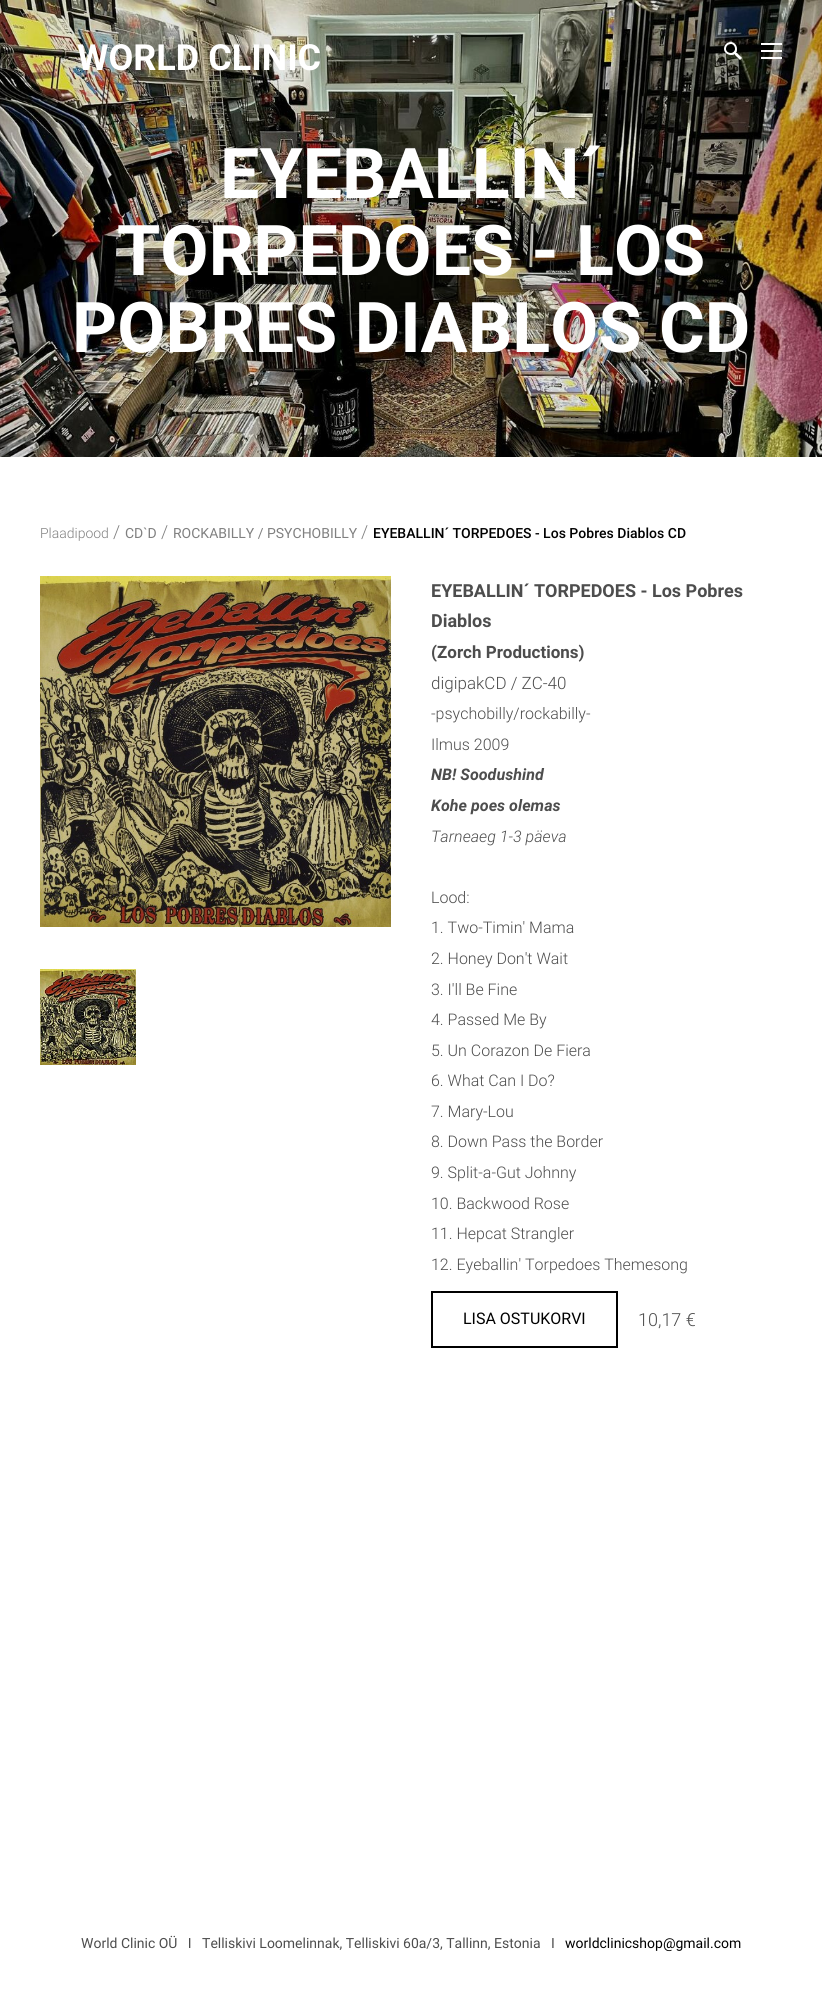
#include <cairo/cairo.h>
#include <math.h>
#include <stddef.h>


static void draw_image(cairo_t *cr, const char *path, double x, double y, double w, double h) {
  cairo_surface_t *image = cairo_image_surface_create_from_png(path);
  cairo_save(cr);
  cairo_set_source_surface(cr, image, x, y);
  cairo_rectangle(cr, x, y, w, h);
  cairo_fill(cr);
  cairo_restore(cr);
  cairo_surface_destroy(image);
}

static void draw(cairo_t *cr) {
  cairo_set_source_rgb(cr, 1, 1, 1);
  cairo_paint(cr);
  draw_image(cr, "images/1.png", 0, 0, 822, 457);
  draw_image(cr, "images/2.png", 724, 42, 18, 18);
  cairo_set_source_rgb(cr, 1, 1, 1);
  cairo_rectangle(cr, 761, 43, 21, 2);
  cairo_fill(cr);
  cairo_rectangle(cr, 761, 50, 21, 2);
  cairo_fill(cr);
  cairo_rectangle(cr, 761, 57, 21, 2);
  cairo_fill(cr);
  draw_image(cr, "images/3.png", 40, 576, 351, 351);
  draw_image(cr, "images/4.png", 40, 969, 96, 96);
  cairo_rectangle(cr, 432, 1292, 185, 55);
  cairo_set_source_rgb(cr, 0, 0, 0);
  cairo_stroke(cr);
  cairo_select_font_face(cr, "Roboto", CAIRO_FONT_SLANT_NORMAL, CAIRO_FONT_WEIGHT_BOLD);
  cairo_set_font_size(cr, 36);
  cairo_set_source_rgb(cr, 1, 1, 1);
  cairo_move_to(cr, 77, 70);
  cairo_show_text(cr, "WORLD CLINIC");
  cairo_set_font_size(cr, 70);
  cairo_move_to(cr, 220, 198);
  cairo_show_text(cr, "EYEBALLIN´");
  cairo_move_to(cr, 117, 275);
  cairo_show_text(cr, "TORPEDOES - LOS");
  cairo_move_to(cr, 72, 352);
  cairo_show_text(cr, "POBRES DIABLOS CD");
  cairo_select_font_face(cr, "Roboto Light", CAIRO_FONT_SLANT_NORMAL, CAIRO_FONT_WEIGHT_NORMAL);
  cairo_set_font_size(cr, 14);
  cairo_set_source_rgb(cr, 128 / 255.0, 128 / 255.0, 128 / 255.0);
  cairo_move_to(cr, 40, 538);
  cairo_show_text(cr, "Plaadipood");
  cairo_set_font_size(cr, 18);
  cairo_move_to(cr, 113, 538);
  cairo_show_text(cr, "/");
  cairo_select_font_face(cr, "Roboto", CAIRO_FONT_SLANT_NORMAL, CAIRO_FONT_WEIGHT_NORMAL);
  cairo_set_font_size(cr, 14);
  cairo_move_to(cr, 125, 538);
  cairo_show_text(cr, "CD`D");
  cairo_select_font_face(cr, "Roboto Light", CAIRO_FONT_SLANT_NORMAL, CAIRO_FONT_WEIGHT_NORMAL);
  cairo_set_font_size(cr, 18);
  cairo_move_to(cr, 161, 538);
  cairo_show_text(cr, "/");
  cairo_select_font_face(cr, "Roboto", CAIRO_FONT_SLANT_NORMAL, CAIRO_FONT_WEIGHT_NORMAL);
  cairo_set_font_size(cr, 14);
  cairo_move_to(cr, 173, 538);
  cairo_show_text(cr, "ROCKABILLY / PSYCHOBILLY");
  cairo_select_font_face(cr, "Roboto Light", CAIRO_FONT_SLANT_NORMAL, CAIRO_FONT_WEIGHT_NORMAL);
  cairo_set_font_size(cr, 18);
  cairo_move_to(cr, 361, 538);
  cairo_show_text(cr, "/");
  cairo_select_font_face(cr, "Roboto Medium", CAIRO_FONT_SLANT_NORMAL, CAIRO_FONT_WEIGHT_NORMAL);
  cairo_set_font_size(cr, 14);
  cairo_set_source_rgb(cr, 0, 0, 0);
  cairo_move_to(cr, 373, 538);
  cairo_show_text(cr, "EYEBALLIN´ TORPEDOES - Los Pobres Diablos CD");
  cairo_select_font_face(cr, "Roboto", CAIRO_FONT_SLANT_NORMAL, CAIRO_FONT_WEIGHT_BOLD);
  cairo_set_font_size(cr, 18);
  cairo_set_source_rgb(cr, 77 / 255.0, 77 / 255.0, 77 / 255.0);
  cairo_move_to(cr, 431, 597);
  cairo_show_text(cr, "EYEBALLIN´ TORPEDOES - Los Pobres");
  cairo_move_to(cr, 431, 627);
  cairo_show_text(cr, "Diablos");
  cairo_set_font_size(cr, 17);
  cairo_move_to(cr, 431, 658);
  cairo_show_text(cr, "(Zorch Productions)");
  cairo_select_font_face(cr, "Roboto Light", CAIRO_FONT_SLANT_NORMAL, CAIRO_FONT_WEIGHT_NORMAL);
  cairo_move_to(cr, 431, 689);
  cairo_show_text(cr, "digipakCD / ZC-40");
  cairo_set_font_size(cr, 16);
  cairo_move_to(cr, 431, 719);
  cairo_show_text(cr, "-psychobilly/rockabilly-");
  cairo_move_to(cr, 431, 750);
  cairo_show_text(cr, "Ilmus 2009");
  cairo_select_font_face(cr, "Roboto", CAIRO_FONT_SLANT_ITALIC, CAIRO_FONT_WEIGHT_BOLD);
  cairo_move_to(cr, 431, 780);
  cairo_show_text(cr, "NB! Soodushind");
  cairo_move_to(cr, 431, 811);
  cairo_show_text(cr, "Kohe poes olemas");
  cairo_select_font_face(cr, "Roboto Light", CAIRO_FONT_SLANT_ITALIC, CAIRO_FONT_WEIGHT_NORMAL);
  cairo_move_to(cr, 431, 842);
  cairo_show_text(cr, "Tarneaeg 1-3 päeva");
  cairo_select_font_face(cr, "Roboto Light", CAIRO_FONT_SLANT_NORMAL, CAIRO_FONT_WEIGHT_NORMAL);
  cairo_move_to(cr, 431, 903);
  cairo_show_text(cr, "Lood:");
  cairo_move_to(cr, 431, 933);
  cairo_show_text(cr, "1. Two-Timin' Mama");
  cairo_move_to(cr, 431, 964);
  cairo_show_text(cr, "2. Honey Don't Wait");
  cairo_move_to(cr, 431, 995);
  cairo_show_text(cr, "3. I'll Be Fine");
  cairo_move_to(cr, 431, 1025);
  cairo_show_text(cr, "4. Passed Me By");
  cairo_move_to(cr, 431, 1056);
  cairo_show_text(cr, "5. Un Corazon De Fiera");
  cairo_move_to(cr, 431, 1086);
  cairo_show_text(cr, "6. What Can I Do?");
  cairo_move_to(cr, 431, 1117);
  cairo_show_text(cr, "7. Mary-Lou");
  cairo_move_to(cr, 431, 1147);
  cairo_show_text(cr, "8. Down Pass the Border");
  cairo_move_to(cr, 431, 1178);
  cairo_show_text(cr, "9. Split-a-Gut Johnny");
  cairo_move_to(cr, 431, 1209);
  cairo_show_text(cr, "10. Backwood Rose");
  cairo_move_to(cr, 431, 1239);
  cairo_show_text(cr, "11. Hepcat Strangler");
  cairo_move_to(cr, 431, 1270);
  cairo_show_text(cr, "12. Eyeballin' Torpedoes Themesong");
  cairo_select_font_face(cr, "Roboto", CAIRO_FONT_SLANT_NORMAL, CAIRO_FONT_WEIGHT_NORMAL);
  cairo_set_source_rgb(cr, 0, 0, 0);
  cairo_move_to(cr, 463, 1324);
  cairo_show_text(cr, "LISA OSTUKORVI");
  cairo_select_font_face(cr, "Roboto Light", CAIRO_FONT_SLANT_NORMAL, CAIRO_FONT_WEIGHT_NORMAL);
  cairo_set_font_size(cr, 18);
  cairo_set_source_rgb(cr, 77 / 255.0, 77 / 255.0, 77 / 255.0);
  cairo_move_to(cr, 638, 1326);
  cairo_show_text(cr, "10,17 €");
  cairo_select_font_face(cr, "Roboto", CAIRO_FONT_SLANT_NORMAL, CAIRO_FONT_WEIGHT_NORMAL);
  cairo_set_font_size(cr, 14);
  cairo_move_to(cr, 81, 1948);
  cairo_show_text(cr, "World Clinic OÜ   I   Telliskivi Loomelinnak, Telliskivi 60a/3, Tallinn, Estonia   I");
  cairo_set_source_rgb(cr, 0, 0, 0);
  cairo_move_to(cr, 565, 1948);
  cairo_show_text(cr, "worldclinicshop@gmail.com");
}

int main(void) {
  cairo_surface_t *surface = cairo_image_surface_create(CAIRO_FORMAT_RGB24, 822, 1991);
  cairo_t *cr = cairo_create(surface);
  cairo_font_options_t *options = cairo_font_options_create();
  cairo_font_options_set_hint_metrics(options, CAIRO_HINT_METRICS_OFF);
  cairo_font_options_set_hint_style(options, CAIRO_HINT_STYLE_NONE);
  cairo_set_font_options(cr, options);
  cairo_set_miter_limit(cr, 4);
  draw(cr);
  cairo_surface_write_to_png(surface, "out.png");
  cairo_font_options_destroy(options);
  cairo_destroy(cr);
  cairo_surface_destroy(surface);
  return 0;
}
